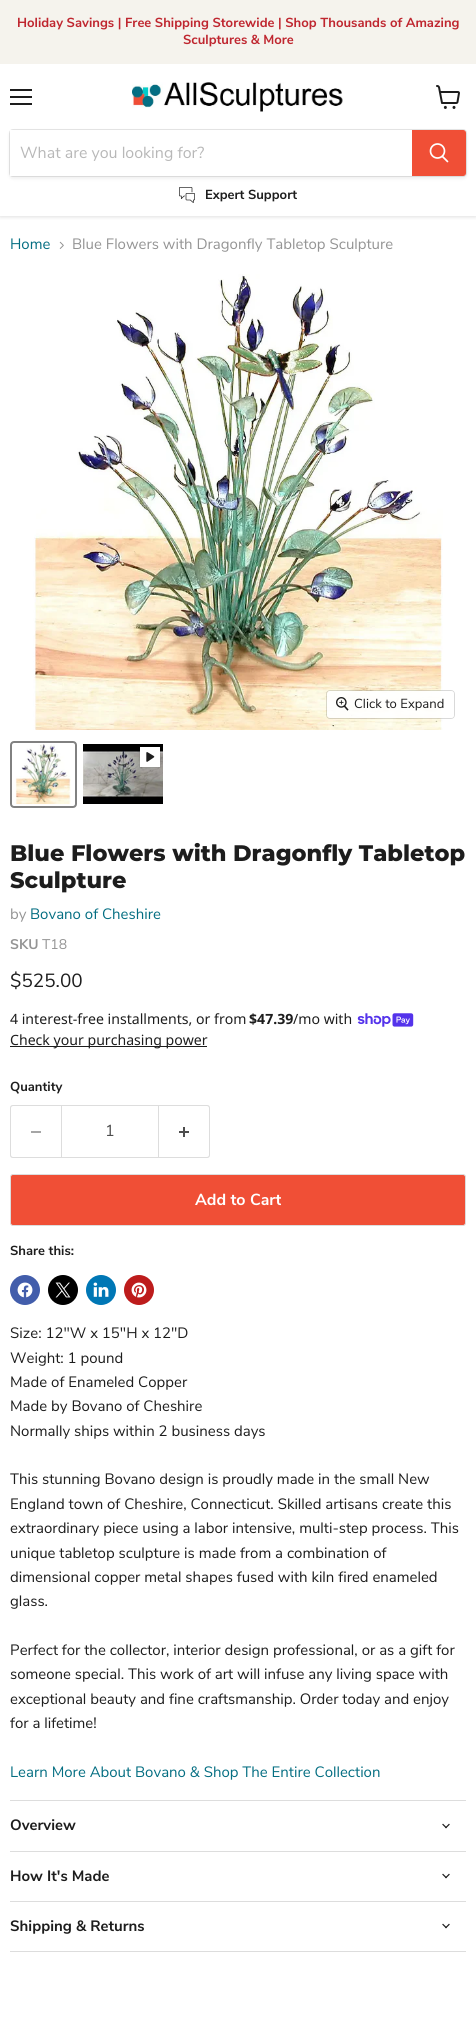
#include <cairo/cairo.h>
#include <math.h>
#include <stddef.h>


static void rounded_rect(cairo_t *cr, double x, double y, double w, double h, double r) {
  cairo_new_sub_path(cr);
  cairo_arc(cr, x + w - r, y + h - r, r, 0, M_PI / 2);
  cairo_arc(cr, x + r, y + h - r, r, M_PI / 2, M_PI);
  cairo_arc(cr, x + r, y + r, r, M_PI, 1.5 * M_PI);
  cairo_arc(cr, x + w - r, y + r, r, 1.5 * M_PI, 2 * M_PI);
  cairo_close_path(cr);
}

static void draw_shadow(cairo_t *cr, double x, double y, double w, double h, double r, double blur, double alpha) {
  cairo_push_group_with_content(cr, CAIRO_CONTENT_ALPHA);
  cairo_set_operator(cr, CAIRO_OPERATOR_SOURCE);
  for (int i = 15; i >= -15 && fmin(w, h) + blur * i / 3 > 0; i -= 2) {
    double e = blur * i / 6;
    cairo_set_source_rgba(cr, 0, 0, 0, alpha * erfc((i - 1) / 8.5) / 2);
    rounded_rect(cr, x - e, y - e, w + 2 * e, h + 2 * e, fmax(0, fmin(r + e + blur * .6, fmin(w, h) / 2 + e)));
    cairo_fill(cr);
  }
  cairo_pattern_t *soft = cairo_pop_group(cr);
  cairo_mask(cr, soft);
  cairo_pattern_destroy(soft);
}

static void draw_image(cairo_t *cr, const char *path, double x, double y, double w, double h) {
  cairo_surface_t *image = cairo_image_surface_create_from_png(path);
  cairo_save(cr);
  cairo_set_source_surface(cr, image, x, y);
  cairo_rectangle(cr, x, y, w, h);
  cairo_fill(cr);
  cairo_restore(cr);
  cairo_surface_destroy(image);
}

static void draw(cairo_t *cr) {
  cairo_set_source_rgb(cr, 1, 1, 1);
  cairo_paint(cr);
  cairo_save(cr);
  cairo_rectangle(cr, 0, 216, 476, 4);
  cairo_clip(cr);
  cairo_set_source_rgb(cr, 128 / 255.0, 128 / 255.0, 128 / 255.0);
  draw_shadow(cr, 0, 65, 476, 152, 0, 2, 0.25);
  cairo_restore(cr);
  cairo_set_source_rgb(cr, 245 / 255.0, 243 / 255.0, 237 / 255.0);
  cairo_rectangle(cr, 0, 0, 476, 64);
  cairo_fill(cr);
  cairo_set_source_rgb(cr, 29 / 255.0, 29 / 255.0, 29 / 255.0);
  cairo_rectangle(cr, 10, 89, 22, 2);
  cairo_fill(cr);
  cairo_rectangle(cr, 10, 96, 22, 2);
  cairo_fill(cr);
  cairo_rectangle(cr, 10, 103, 22, 2);
  cairo_fill(cr);
  draw_image(cr, "images/1.png", 436, 85, 24, 24);
  draw_image(cr, "images/2.png", 132, 82, 211, 30);
  cairo_set_source_rgb(cr, 128 / 255.0, 128 / 255.0, 128 / 255.0);
  draw_shadow(cr, 9, 131, 458, 48, 4, 1.5, 0.11);
  rounded_rect(cr, 9.5, 129.5, 457, 47, 3.5);
  cairo_set_source_rgba(cr, 128 / 255.0, 128 / 255.0, 128 / 255.0, 0.2);
  cairo_set_line_width(cr, 1);
  cairo_stroke(cr);
  cairo_set_source_rgb(cr, 1, 1, 1);
  cairo_rectangle(cr, 10, 130, 402, 46);
  cairo_fill(cr);
  cairo_set_source_rgb(cr, 240 / 255.0, 79 / 255.0, 54 / 255.0);
  cairo_new_path(cr);
  cairo_move_to(cr, 412.5, 130.5);
  cairo_line_to(cr, 463, 130.5);
  cairo_curve_to(cr, 464.5, 130.5, 465.5, 131.5, 465.5, 133);
  cairo_line_to(cr, 465.5, 173);
  cairo_curve_to(cr, 465.5, 174.5, 464.5, 175.5, 463, 175.5);
  cairo_line_to(cr, 412.5, 175.5);
  cairo_close_path(cr);
  cairo_fill_preserve(cr);
  cairo_stroke(cr);
  cairo_new_path(cr);
  cairo_move_to(cr, 447.5, 161.5);
  cairo_line_to(cr, 442.5, 156.5);
  cairo_set_source_rgb(cr, 1, 1, 1);
  cairo_set_line_width(cr, 1.7);
  cairo_set_line_cap(cr, CAIRO_LINE_CAP_ROUND);
  cairo_stroke(cr);
  cairo_arc(cr, 437.5, 151, 7, 0, 2 * M_PI);
  cairo_set_line_cap(cr, CAIRO_LINE_CAP_BUTT);
  cairo_stroke(cr);
  draw_image(cr, "images/3.png", 179, 187, 16, 16);
  draw_image(cr, "images/4.png", 59, 241, 5, 8);
  draw_image(cr, "images/5.png", 33, 274, 410, 456);
  rounded_rect(cr, 326.5, 690.5, 128, 28, 3.5);
  cairo_set_source_rgba(cr, 0, 0, 0, 0.15);
  cairo_set_line_width(cr, 1);
  cairo_stroke(cr);
  cairo_set_source_rgba(cr, 1, 1, 1, 0.9);
  rounded_rect(cr, 327, 691, 127, 27, 3);
  cairo_fill(cr);
  draw_image(cr, "images/6.png", 336, 697, 13, 14);
  rounded_rect(cr, 11, 742, 65, 65, 3);
  cairo_set_source_rgb(cr, 129 / 255.0, 129 / 255.0, 129 / 255.0);
  cairo_set_line_width(cr, 2);
  cairo_stroke(cr);
  draw_image(cr, "images/7.png", 15, 744, 56, 60);
  draw_image(cr, "images/8.png", 83, 744, 80, 60);
  cairo_rectangle(cr, 139.5, 746.5, 21, 21);
  cairo_set_source_rgba(cr, 29 / 255.0, 29 / 255.0, 29 / 255.0, 0.05);
  cairo_set_line_width(cr, 1);
  cairo_stroke(cr);
  cairo_set_source_rgb(cr, 1, 1, 1);
  cairo_rectangle(cr, 140, 747, 20, 20);
  cairo_fill(cr);
  draw_image(cr, "images/9.png", 146, 752, 9, 10);
  draw_image(cr, "images/10.png", 357, 1013, 57, 14);
  cairo_set_source_rgb(cr, 29 / 255.0, 29 / 255.0, 29 / 255.0);
  cairo_rectangle(cr, 10, 1046, 197, 1);
  cairo_fill(cr);
  cairo_set_source_rgb(cr, 221 / 255.0, 221 / 255.0, 221 / 255.0);
  cairo_set_fill_rule(cr, CAIRO_FILL_RULE_EVEN_ODD);
  cairo_new_path(cr);
  cairo_move_to(cr, 13, 1105);
  cairo_line_to(cr, 61, 1105);
  cairo_line_to(cr, 61, 1158);
  cairo_line_to(cr, 13, 1158);
  cairo_curve_to(cr, 11, 1158, 10, 1157, 10, 1155);
  cairo_line_to(cr, 10, 1108);
  cairo_curve_to(cr, 10, 1106, 11, 1105, 13, 1105);
  cairo_close_path(cr);
  cairo_move_to(cr, 13, 1106);
  cairo_line_to(cr, 61, 1106);
  cairo_line_to(cr, 61, 1157);
  cairo_line_to(cr, 13, 1157);
  cairo_curve_to(cr, 12, 1157, 11, 1156, 11, 1155);
  cairo_line_to(cr, 11, 1108);
  cairo_curve_to(cr, 11, 1107, 12, 1106, 13, 1106);
  cairo_close_path(cr);
  cairo_fill(cr);
  cairo_set_source_rgb(cr, 166 / 255.0, 166 / 255.0, 166 / 255.0);
  cairo_rectangle(cr, 31, 1131, 10, 2);
  cairo_fill(cr);
  cairo_rectangle(cr, 61.5, 1105.5, 97, 52);
  cairo_set_source_rgb(cr, 221 / 255.0, 221 / 255.0, 221 / 255.0);
  cairo_stroke(cr);
  cairo_new_path(cr);
  cairo_move_to(cr, 159, 1105);
  cairo_line_to(cr, 207, 1105);
  cairo_curve_to(cr, 209, 1105, 210, 1106, 210, 1108);
  cairo_line_to(cr, 210, 1155);
  cairo_curve_to(cr, 210, 1157, 209, 1158, 207, 1158);
  cairo_line_to(cr, 159, 1158);
  cairo_close_path(cr);
  cairo_move_to(cr, 159, 1106);
  cairo_line_to(cr, 207, 1106);
  cairo_curve_to(cr, 208, 1106, 209, 1107, 209, 1108);
  cairo_line_to(cr, 209, 1155);
  cairo_curve_to(cr, 209, 1156, 208, 1157, 207, 1157);
  cairo_line_to(cr, 159, 1157);
  cairo_close_path(cr);
  cairo_fill(cr);
  draw_image(cr, "images/11.png", 179, 1127, 10, 10);
  cairo_set_source_rgb(cr, 240 / 255.0, 79 / 255.0, 54 / 255.0);
  rounded_rect(cr, 10.5, 1174.5, 455, 51, 2.5);
  cairo_fill_preserve(cr);
  cairo_set_source_rgb(cr, 221 / 255.0, 221 / 255.0, 221 / 255.0);
  cairo_stroke(cr);
  cairo_set_source_rgb(cr, 66 / 255.0, 93 / 255.0, 171 / 255.0);
  cairo_arc(cr, 25, 1290, 15, 0, 2 * M_PI);
  cairo_fill(cr);
  draw_image(cr, "images/12.png", 17, 1282, 16, 16);
  cairo_set_source_rgb(cr, 0, 0, 0);
  cairo_arc(cr, 63, 1290, 15, 0, 2 * M_PI);
  cairo_fill(cr);
  draw_image(cr, "images/13.png", 55, 1282, 16, 16);
  cairo_set_source_rgb(cr, 0, 119 / 255.0, 181 / 255.0);
  cairo_arc(cr, 101, 1290, 15, 0, 2 * M_PI);
  cairo_fill(cr);
  draw_image(cr, "images/14.png", 93, 1282, 16, 15);
  cairo_set_source_rgb(cr, 189 / 255.0, 28 / 255.0, 28 / 255.0);
  cairo_arc(cr, 139, 1290, 15, 0, 2 * M_PI);
  cairo_fill(cr);
  draw_image(cr, "images/15.png", 131, 1282, 16, 16);
  cairo_set_source_rgb(cr, 221 / 255.0, 221 / 255.0, 221 / 255.0);
  cairo_rectangle(cr, 10, 1800, 456, 1);
  cairo_fill(cr);
  cairo_rectangle(cr, 10, 1851, 456, 1);
  cairo_fill(cr);
  draw_image(cr, "images/16.png", 442, 1823, 8, 6);
  cairo_rectangle(cr, 10, 1901, 456, 1);
  cairo_fill(cr);
  draw_image(cr, "images/16.png", 442, 1873, 8, 6);
  cairo_rectangle(cr, 10, 1951, 456, 1);
  cairo_fill(cr);
  draw_image(cr, "images/16.png", 442, 1923, 8, 6);
  cairo_select_font_face(cr, "Nunito Sans", CAIRO_FONT_SLANT_NORMAL, CAIRO_FONT_WEIGHT_BOLD);
  cairo_set_font_size(cr, 13.1);
  cairo_set_source_rgb(cr, 191 / 255.0, 38 / 255.0, 47 / 255.0);
  cairo_move_to(cr, 17, 27);
  cairo_show_text(cr, "Holiday Savings | Free Shipping Storewide | Shop Thousands of Amazing");
  cairo_move_to(cr, 183, 44);
  cairo_show_text(cr, "Sculptures & More");
  cairo_select_font_face(cr, "Nunito Sans", CAIRO_FONT_SLANT_NORMAL, CAIRO_FONT_WEIGHT_NORMAL);
  cairo_set_font_size(cr, 16);
  cairo_set_source_rgb(cr, 184 / 255.0, 184 / 255.0, 184 / 255.0);
  cairo_move_to(cr, 20, 158);
  cairo_show_text(cr, "What are you looking for?");
  cairo_select_font_face(cr, "Nunito Sans", CAIRO_FONT_SLANT_NORMAL, CAIRO_FONT_WEIGHT_BOLD);
  cairo_set_font_size(cr, 13.1);
  cairo_set_source_rgb(cr, 29 / 255.0, 29 / 255.0, 29 / 255.0);
  cairo_move_to(cr, 205, 199);
  cairo_show_text(cr, "Expert Support");
  cairo_select_font_face(cr, "Nunito Sans", CAIRO_FONT_SLANT_NORMAL, CAIRO_FONT_WEIGHT_NORMAL);
  cairo_set_font_size(cr, 15);
  cairo_set_source_rgb(cr, 4 / 255.0, 110 / 255.0, 130 / 255.0);
  cairo_move_to(cr, 10, 249);
  cairo_show_text(cr, "Home");
  cairo_set_source_rgb(cr, 148 / 255.0, 148 / 255.0, 148 / 255.0);
  cairo_move_to(cr, 72, 249);
  cairo_show_text(cr, "Blue Flowers with Dragonfly Tabletop Sculpture");
  cairo_set_font_size(cr, 13.1);
  cairo_set_source_rgb(cr, 29 / 255.0, 29 / 255.0, 29 / 255.0);
  cairo_move_to(cr, 354, 708);
  cairo_show_text(cr, "Click to Expand");
  cairo_select_font_face(cr, "Montserrat ExtraBold", CAIRO_FONT_SLANT_NORMAL, CAIRO_FONT_WEIGHT_NORMAL);
  cairo_set_font_size(cr, 22.5);
  cairo_move_to(cr, 10, 861);
  cairo_show_text(cr, "Blue Flowers with Dragonfly Tabletop");
  cairo_move_to(cr, 10, 888);
  cairo_show_text(cr, "Sculpture");
  cairo_select_font_face(cr, "Nunito Sans", CAIRO_FONT_SLANT_NORMAL, CAIRO_FONT_WEIGHT_NORMAL);
  cairo_set_font_size(cr, 15);
  cairo_set_source_rgb(cr, 148 / 255.0, 148 / 255.0, 148 / 255.0);
  cairo_move_to(cr, 10, 919);
  cairo_show_text(cr, "by");
  cairo_set_source_rgb(cr, 4 / 255.0, 110 / 255.0, 130 / 255.0);
  cairo_move_to(cr, 30, 919);
  cairo_show_text(cr, "Bovano of Cheshire");
  cairo_select_font_face(cr, "Nunito Sans", CAIRO_FONT_SLANT_NORMAL, CAIRO_FONT_WEIGHT_BOLD);
  cairo_set_font_size(cr, 14);
  cairo_set_source_rgb(cr, 148 / 255.0, 148 / 255.0, 148 / 255.0);
  cairo_move_to(cr, 10, 949);
  cairo_show_text(cr, "SKU");
  cairo_select_font_face(cr, "Nunito Sans", CAIRO_FONT_SLANT_NORMAL, CAIRO_FONT_WEIGHT_NORMAL);
  cairo_move_to(cr, 42, 949);
  cairo_show_text(cr, "T18");
  cairo_set_font_size(cr, 19);
  cairo_set_source_rgb(cr, 29 / 255.0, 29 / 255.0, 29 / 255.0);
  cairo_move_to(cr, 10, 987);
  cairo_show_text(cr, "$525.00");
  cairo_select_font_face(cr, "Noto Sans", CAIRO_FONT_SLANT_NORMAL, CAIRO_FONT_WEIGHT_NORMAL);
  cairo_set_font_size(cr, 14.1);
  cairo_move_to(cr, 10, 1024);
  cairo_show_text(cr, "4 interest-free installments, or from");
  cairo_select_font_face(cr, "Noto Sans", CAIRO_FONT_SLANT_NORMAL, CAIRO_FONT_WEIGHT_BOLD);
  cairo_move_to(cr, 249, 1024);
  cairo_show_text(cr, "$47.39");
  cairo_select_font_face(cr, "Noto Sans", CAIRO_FONT_SLANT_NORMAL, CAIRO_FONT_WEIGHT_NORMAL);
  cairo_move_to(cr, 293, 1024);
  cairo_show_text(cr, "/mo with");
  cairo_move_to(cr, 10, 1045);
  cairo_show_text(cr, "Check your purchasing power");
  cairo_select_font_face(cr, "Nunito Sans", CAIRO_FONT_SLANT_NORMAL, CAIRO_FONT_WEIGHT_BOLD);
  cairo_set_font_size(cr, 13.1);
  cairo_move_to(cr, 10, 1091);
  cairo_show_text(cr, "Quantity");
  cairo_select_font_face(cr, "Nunito Sans", CAIRO_FONT_SLANT_NORMAL, CAIRO_FONT_WEIGHT_NORMAL);
  cairo_set_font_size(cr, 16);
  cairo_set_source_rgb(cr, 77 / 255.0, 77 / 255.0, 77 / 255.0);
  cairo_move_to(cr, 105, 1136);
  cairo_show_text(cr, "1");
  cairo_select_font_face(cr, "Nunito Sans", CAIRO_FONT_SLANT_NORMAL, CAIRO_FONT_WEIGHT_BOLD);
  cairo_set_source_rgb(cr, 1, 1, 1);
  cairo_move_to(cr, 195, 1205);
  cairo_show_text(cr, "Add to Cart");
  cairo_set_font_size(cr, 13.1);
  cairo_set_source_rgb(cr, 29 / 255.0, 29 / 255.0, 29 / 255.0);
  cairo_move_to(cr, 10, 1255);
  cairo_show_text(cr, "Share this:");
  cairo_select_font_face(cr, "Nunito Sans", CAIRO_FONT_SLANT_NORMAL, CAIRO_FONT_WEIGHT_NORMAL);
  cairo_set_font_size(cr, 15);
  cairo_move_to(cr, 10, 1338);
  cairo_show_text(cr, "Size: 12\"W x 15\"H x 12\"D");
  cairo_move_to(cr, 10, 1363);
  cairo_show_text(cr, "Weight: 1 pound");
  cairo_move_to(cr, 10, 1387);
  cairo_show_text(cr, "Made of Enameled Copper");
  cairo_move_to(cr, 10, 1411);
  cairo_show_text(cr, "Made by Bovano of Cheshire");
  cairo_move_to(cr, 10, 1436);
  cairo_show_text(cr, "Normally ships within 2 business days");
  cairo_move_to(cr, 10, 1484);
  cairo_show_text(cr, "This stunning Bovano design is proudly made in the small New");
  cairo_move_to(cr, 10, 1509);
  cairo_show_text(cr, "England town of Cheshire, Connecticut. Skilled artisans create this");
  cairo_move_to(cr, 10, 1533);
  cairo_show_text(cr, "extraordinary piece using a labor intensive, multi-step process. This");
  cairo_move_to(cr, 10, 1558);
  cairo_show_text(cr, "unique tabletop sculpture is made from a combination of");
  cairo_move_to(cr, 10, 1582);
  cairo_show_text(cr, "dimensional copper metal shapes fused with kiln fired enameled");
  cairo_move_to(cr, 10, 1606);
  cairo_show_text(cr, "glass.");
  cairo_move_to(cr, 10, 1655);
  cairo_show_text(cr, "Perfect for the collector, interior design professional, or as a gift for");
  cairo_move_to(cr, 10, 1679);
  cairo_show_text(cr, "someone special. This work of art will infuse any living space with");
  cairo_move_to(cr, 10, 1704);
  cairo_show_text(cr, "exceptional beauty and fine craftsmanship. Order today and enjoy");
  cairo_move_to(cr, 10, 1728);
  cairo_show_text(cr, "for a lifetime!");
  cairo_set_source_rgb(cr, 4 / 255.0, 110 / 255.0, 130 / 255.0);
  cairo_move_to(cr, 10, 1777);
  cairo_show_text(cr, "Learn More About Bovano & Shop The Entire Collection");
  cairo_select_font_face(cr, "Nunito Sans", CAIRO_FONT_SLANT_NORMAL, CAIRO_FONT_WEIGHT_BOLD);
  cairo_set_source_rgb(cr, 29 / 255.0, 29 / 255.0, 29 / 255.0);
  cairo_move_to(cr, 10, 1830);
  cairo_show_text(cr, "Overview");
  cairo_move_to(cr, 10, 1881);
  cairo_show_text(cr, "How It's Made");
  cairo_move_to(cr, 10, 1931);
  cairo_show_text(cr, "Shipping & Returns");
}

int main(void) {
  cairo_surface_t *surface = cairo_image_surface_create(CAIRO_FORMAT_RGB24, 476, 2044);
  cairo_t *cr = cairo_create(surface);
  cairo_font_options_t *options = cairo_font_options_create();
  cairo_font_options_set_hint_metrics(options, CAIRO_HINT_METRICS_OFF);
  cairo_font_options_set_hint_style(options, CAIRO_HINT_STYLE_NONE);
  cairo_set_font_options(cr, options);
  cairo_set_miter_limit(cr, 4);
  draw(cr);
  cairo_surface_write_to_png(surface, "out.png");
  cairo_font_options_destroy(options);
  cairo_destroy(cr);
  cairo_surface_destroy(surface);
  return 0;
}
